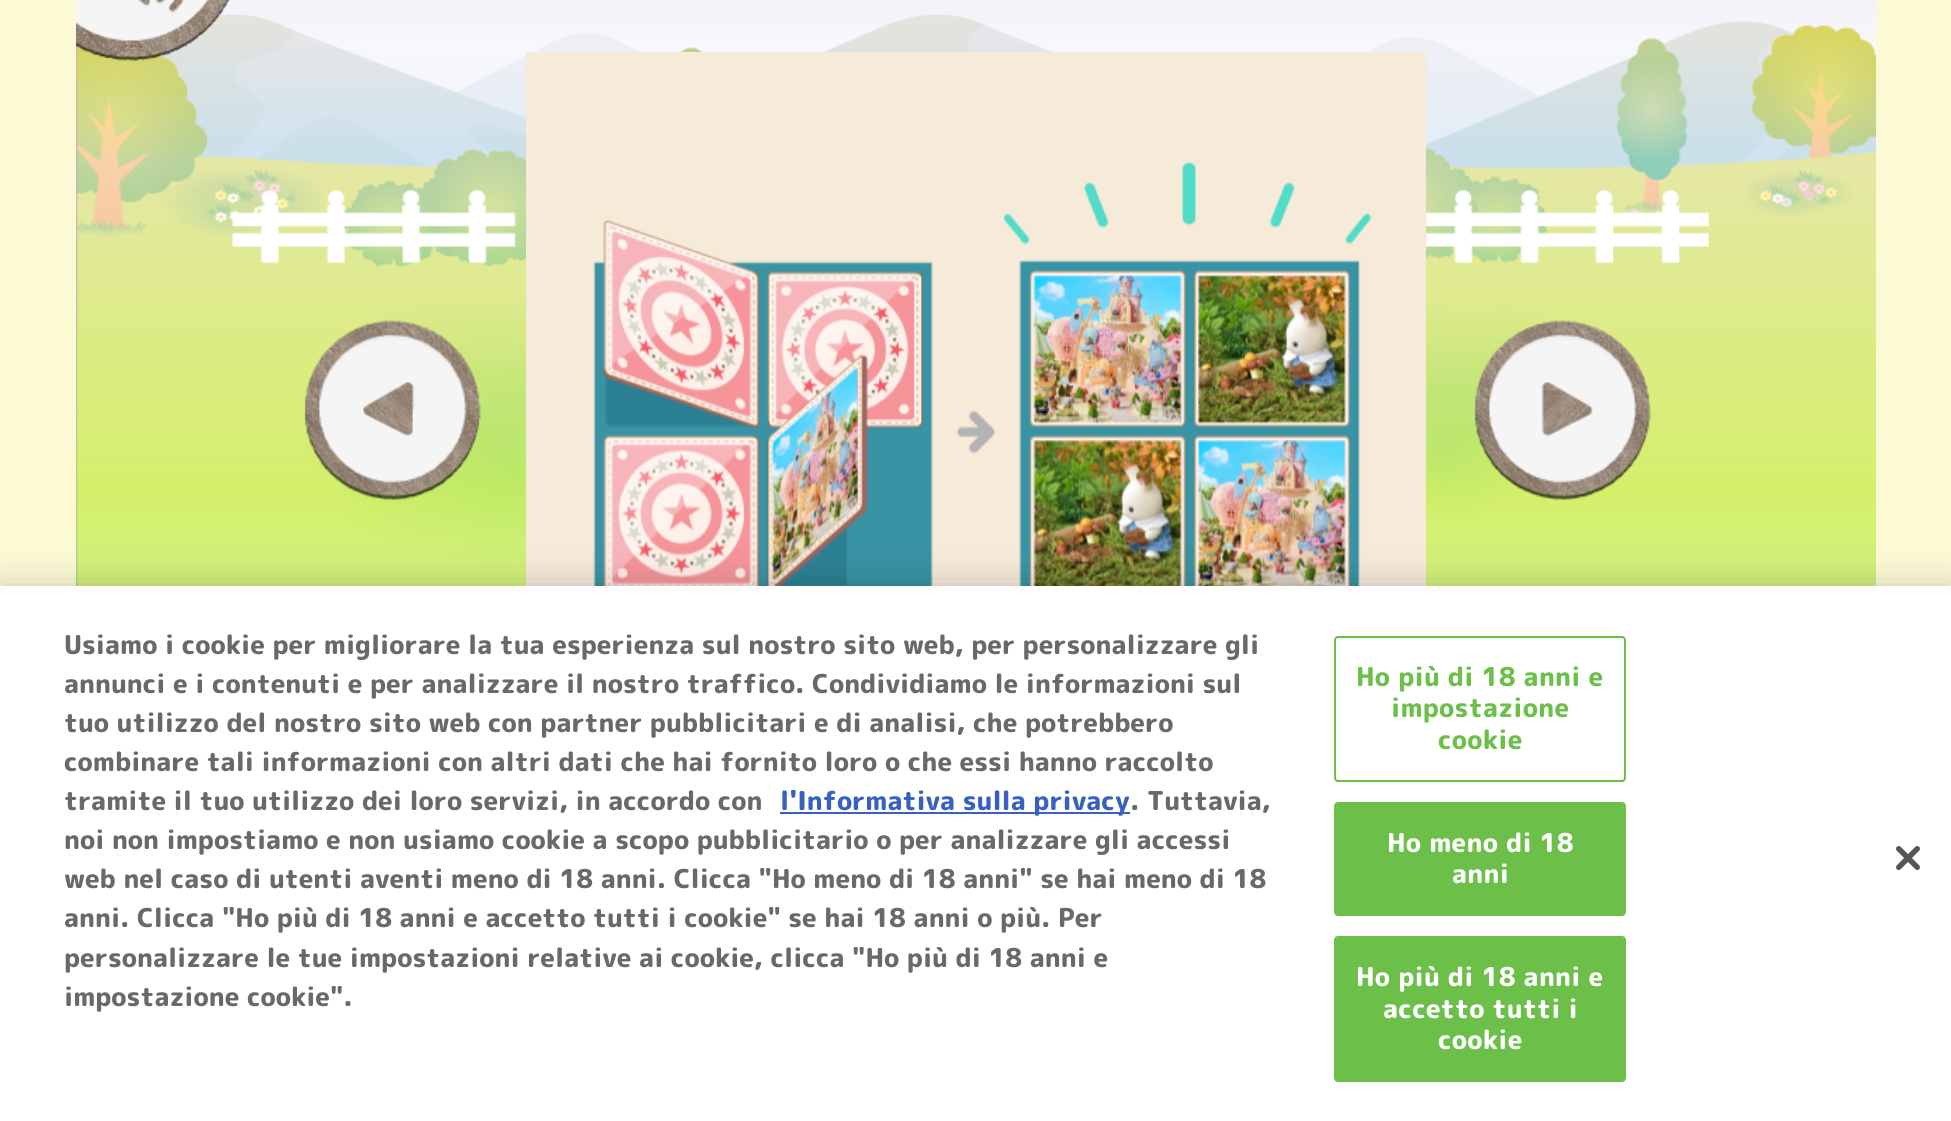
#include <cairo/cairo.h>
#include <math.h>
#include <stddef.h>


static void draw_spaced(cairo_t *cr, double x, double y, const char *s, double letter, double word) {
  cairo_move_to(cr, x, y);
  while (*s) {
    char ch[5] = {0};
    int n = 0;
    do ch[n++] = *s++; while ((*s & 0xC0) == 0x80);
    cairo_show_text(cr, ch);
    cairo_rel_move_to(cr, letter + word * (*ch == ' '), 0);
  }
}

static void rounded_rect(cairo_t *cr, double x, double y, double w, double h, double r) {
  cairo_new_sub_path(cr);
  cairo_arc(cr, x + w - r, y + h - r, r, 0, M_PI / 2);
  cairo_arc(cr, x + r, y + h - r, r, M_PI / 2, M_PI);
  cairo_arc(cr, x + r, y + r, r, M_PI, 1.5 * M_PI);
  cairo_arc(cr, x + w - r, y + r, r, 1.5 * M_PI, 2 * M_PI);
  cairo_close_path(cr);
}

static void draw_shadow(cairo_t *cr, double x, double y, double w, double h, double r, double blur, double alpha) {
  cairo_push_group_with_content(cr, CAIRO_CONTENT_ALPHA);
  cairo_set_operator(cr, CAIRO_OPERATOR_SOURCE);
  for (int i = 15; i >= -15 && fmin(w, h) + blur * i / 3 > 0; i -= 2) {
    double e = blur * i / 6;
    cairo_set_source_rgba(cr, 0, 0, 0, alpha * erfc((i - 1) / 8.5) / 2);
    rounded_rect(cr, x - e, y - e, w + 2 * e, h + 2 * e, fmax(0, fmin(r + e + blur * .6, fmin(w, h) / 2 + e)));
    cairo_fill(cr);
  }
  cairo_pattern_t *soft = cairo_pop_group(cr);
  cairo_mask(cr, soft);
  cairo_pattern_destroy(soft);
}

static void draw_image(cairo_t *cr, const char *path, double x, double y, double w, double h) {
  cairo_surface_t *image = cairo_image_surface_create_from_png(path);
  cairo_save(cr);
  cairo_set_source_surface(cr, image, x, y);
  cairo_rectangle(cr, x, y, w, h);
  cairo_fill(cr);
  cairo_restore(cr);
  cairo_surface_destroy(image);
}

static void draw(cairo_t *cr) {
  cairo_set_source_rgb(cr, 252 / 255.0, 250 / 255.0, 213 / 255.0);
  cairo_paint(cr);
  draw_image(cr, "images/1.png", 76, 0, 1800, 586);
  draw_image(cr, "images/2.png", 304, 320, 177, 180);
  draw_image(cr, "images/3.png", 526, 52, 900, 534);
  draw_image(cr, "images/4.png", 1474, 320, 177, 180);
  draw_image(cr, "images/5.png", 76, 0, 155, 61);
  cairo_set_source_rgb(cr, 0, 0, 0);
  draw_shadow(cr, 0, 586, 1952, 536, 0, 18, 0.2);
  cairo_set_source_rgb(cr, 1, 1, 1);
  cairo_rectangle(cr, 0, 586, 1951, 535);
  cairo_fill(cr);
  cairo_set_source_rgb(cr, 56 / 255.0, 96 / 255.0, 190 / 255.0);
  cairo_rectangle(cr, 780, 812, 350, 2);
  cairo_fill(cr);
  rounded_rect(cr, 1335, 637, 290, 144, 3);
  cairo_set_source_rgb(cr, 108 / 255.0, 192 / 255.0, 74 / 255.0);
  cairo_stroke(cr);
  rounded_rect(cr, 1335, 803, 290, 112, 3);
  cairo_fill_preserve(cr);
  cairo_stroke(cr);
  rounded_rect(cr, 1335, 937, 290, 144, 3);
  cairo_fill_preserve(cr);
  cairo_stroke(cr);
  draw_image(cr, "images/6.png", 1896, 846, 24, 24);
  cairo_select_font_face(cr, "Rounded Mplus 1c ExtraBold", CAIRO_FONT_SLANT_NORMAL, CAIRO_FONT_WEIGHT_NORMAL);
  cairo_set_font_size(cr, 26);
  cairo_set_source_rgb(cr, 105 / 255.0, 105 / 255.0, 105 / 255.0);
  cairo_move_to(cr, 64, 654);
  cairo_show_text(cr, "Usiamo i cookie per migliorare la tua esperienza sul nostro sito web, per personalizzare gli");
  cairo_move_to(cr, 64, 693);
  cairo_show_text(cr, "annunci e i contenuti e per analizzare il nostro traffico. Condividiamo le informazioni sul");
  cairo_move_to(cr, 64, 732);
  cairo_show_text(cr, "tuo utilizzo del nostro sito web con partner pubblicitari e di analisi, che potrebbero");
  cairo_move_to(cr, 64, 771);
  cairo_show_text(cr, "combinare tali informazioni con altri dati che hai fornito loro o che essi hanno raccolto");
  cairo_move_to(cr, 64, 810);
  cairo_show_text(cr, "tramite il tuo utilizzo dei loro servizi, in accordo con");
  cairo_set_source_rgb(cr, 56 / 255.0, 96 / 255.0, 190 / 255.0);
  cairo_move_to(cr, 780, 810);
  cairo_show_text(cr, "l'Informativa sulla privacy");
  cairo_set_source_rgb(cr, 105 / 255.0, 105 / 255.0, 105 / 255.0);
  cairo_move_to(cr, 1130, 810);
  cairo_show_text(cr, ". Tuttavia,");
  cairo_move_to(cr, 64, 849);
  cairo_show_text(cr, "noi non impostiamo e non usiamo cookie a scopo pubblicitario o per analizzare gli accessi");
  cairo_move_to(cr, 64, 888);
  cairo_show_text(cr, "web nel caso di utenti aventi meno di 18 anni. Clicca \"Ho meno di 18 anni\" se hai meno di 18");
  cairo_move_to(cr, 64, 927);
  cairo_show_text(cr, "anni. Clicca \"Ho più di 18 anni e accetto tutti i cookie\" se hai 18 anni o più. Per");
  cairo_move_to(cr, 64, 967);
  cairo_show_text(cr, "personalizzare le tue impostazioni relative ai cookie, clicca \"Ho più di 18 anni e");
  cairo_move_to(cr, 64, 1006);
  cairo_show_text(cr, "impostazione cookie\".");
  cairo_set_source_rgb(cr, 108 / 255.0, 192 / 255.0, 74 / 255.0);
  draw_spaced(cr, 1356, 686, "Ho più di 18 anni e", 0.25, 0);
  draw_spaced(cr, 1391, 717, "impostazione", 0.25, 0);
  draw_spaced(cr, 1438, 749, "cookie", 0.25, 0);
  cairo_set_source_rgb(cr, 1, 1, 1);
  draw_spaced(cr, 1387, 852, "Ho meno di 18", 0.25, 0);
  draw_spaced(cr, 1452, 883, "anni", 0.25, 0);
  draw_spaced(cr, 1356, 986, "Ho più di 18 anni e", 0.25, 0);
  draw_spaced(cr, 1383, 1018, "accetto tutti i", 0.25, 0);
  draw_spaced(cr, 1438, 1049, "cookie", 0.25, 0);
}

int main(void) {
  cairo_surface_t *surface = cairo_image_surface_create(CAIRO_FORMAT_RGB24, 1951, 1121);
  cairo_t *cr = cairo_create(surface);
  cairo_font_options_t *options = cairo_font_options_create();
  cairo_font_options_set_hint_metrics(options, CAIRO_HINT_METRICS_OFF);
  cairo_font_options_set_hint_style(options, CAIRO_HINT_STYLE_NONE);
  cairo_set_font_options(cr, options);
  cairo_set_miter_limit(cr, 4);
  draw(cr);
  cairo_surface_write_to_png(surface, "out.png");
  cairo_font_options_destroy(options);
  cairo_destroy(cr);
  cairo_surface_destroy(surface);
  return 0;
}
